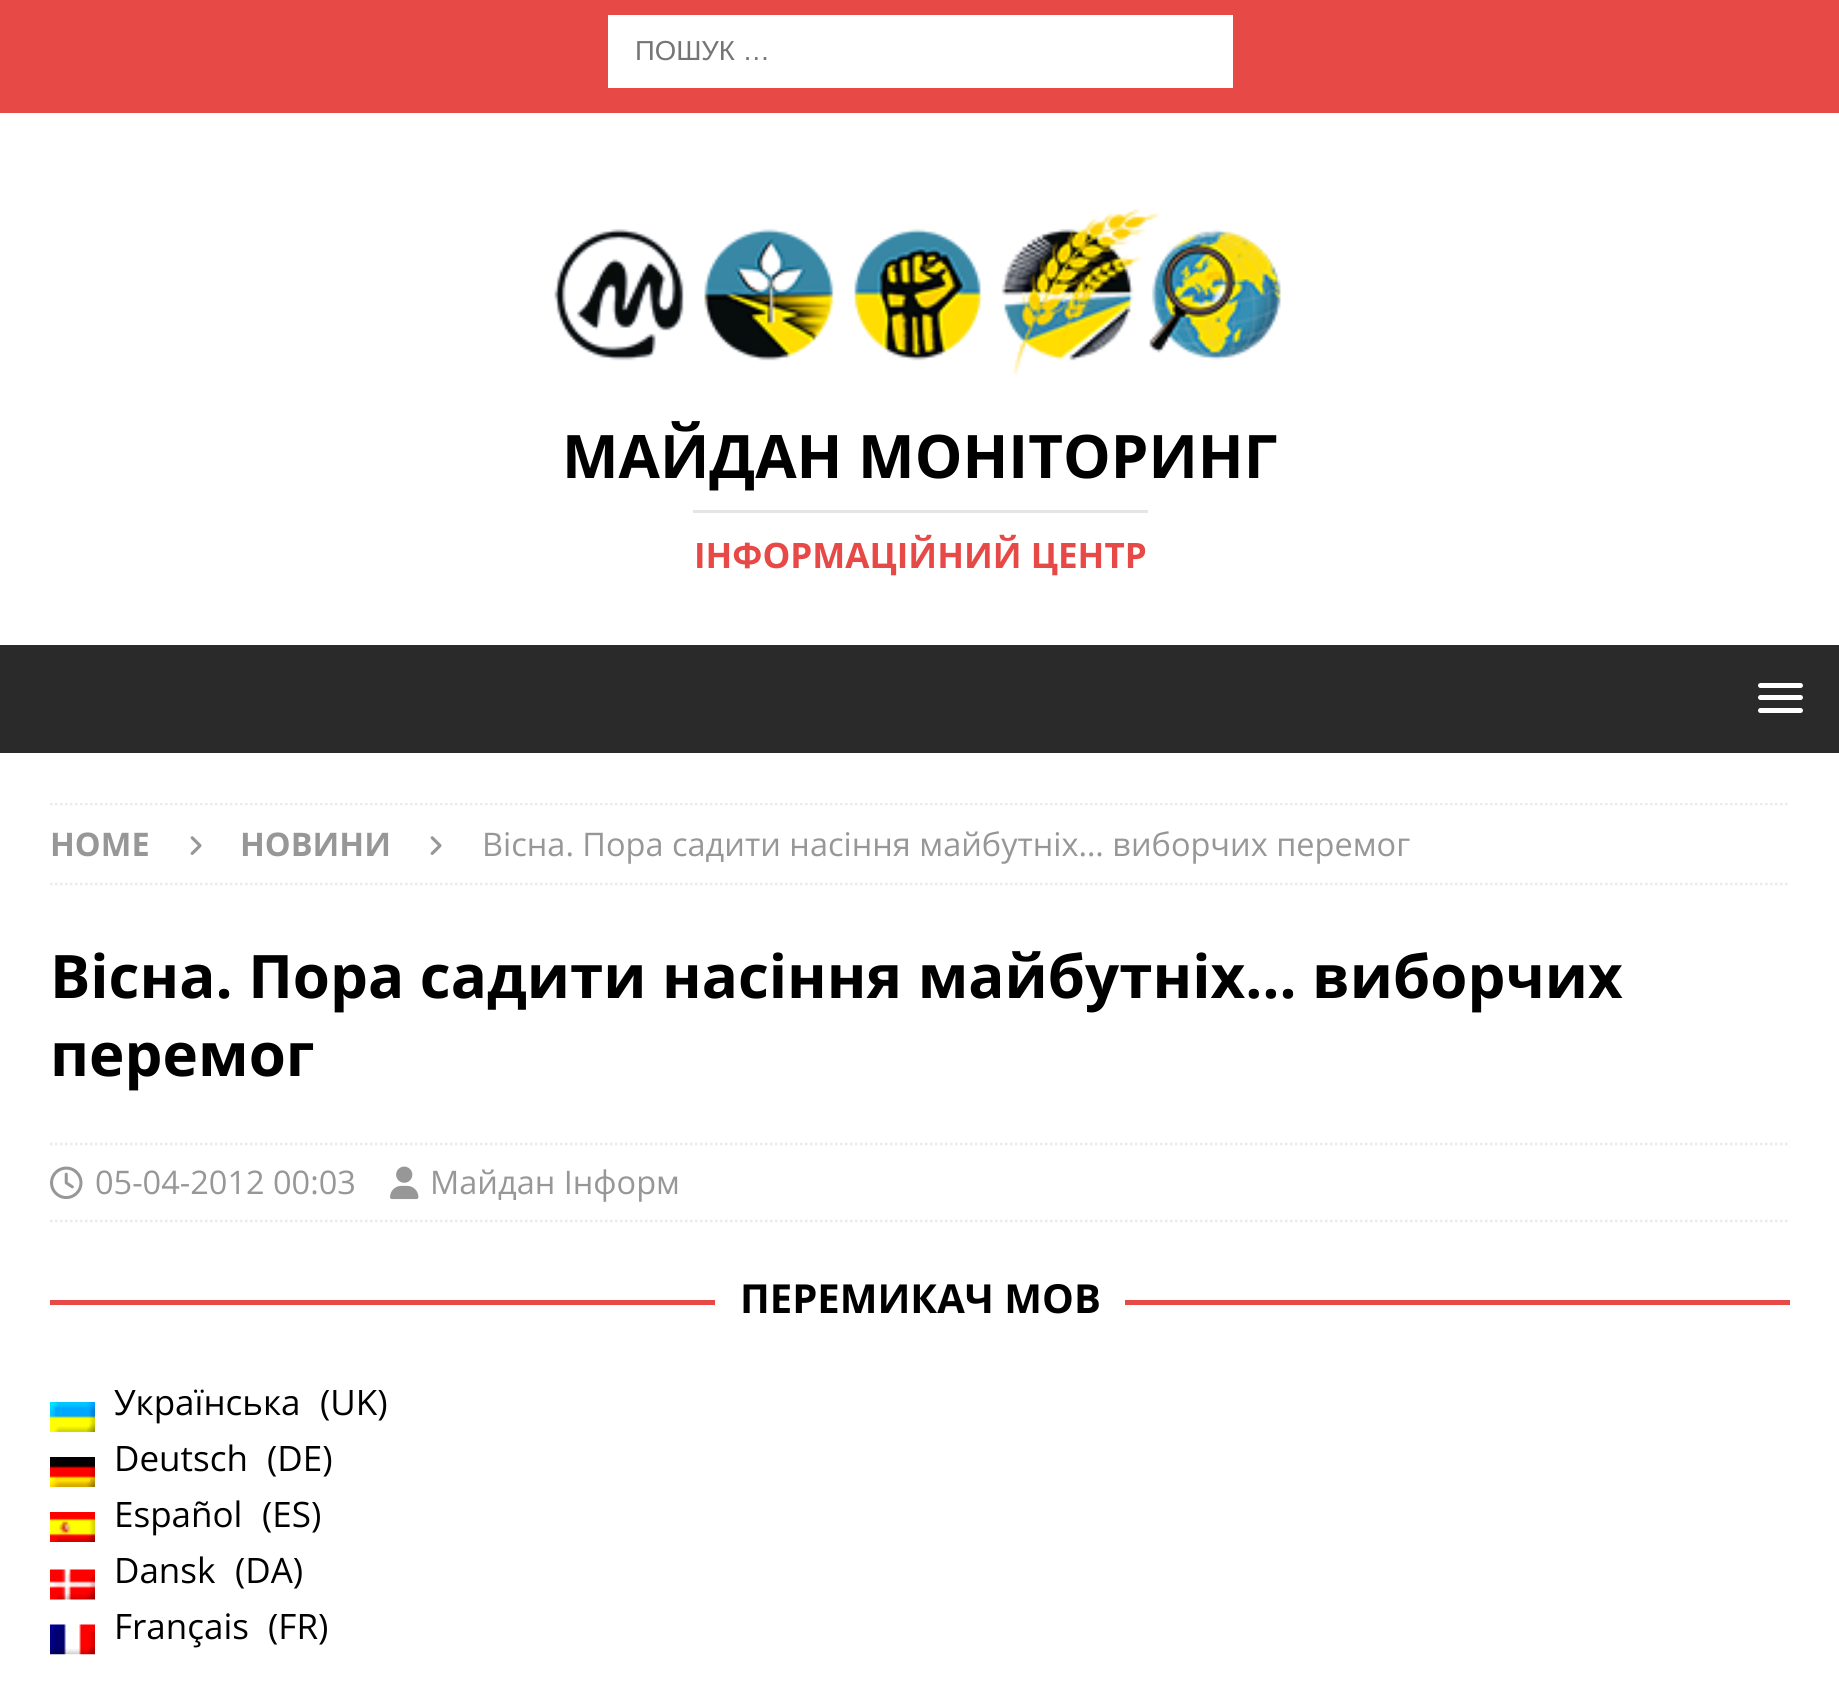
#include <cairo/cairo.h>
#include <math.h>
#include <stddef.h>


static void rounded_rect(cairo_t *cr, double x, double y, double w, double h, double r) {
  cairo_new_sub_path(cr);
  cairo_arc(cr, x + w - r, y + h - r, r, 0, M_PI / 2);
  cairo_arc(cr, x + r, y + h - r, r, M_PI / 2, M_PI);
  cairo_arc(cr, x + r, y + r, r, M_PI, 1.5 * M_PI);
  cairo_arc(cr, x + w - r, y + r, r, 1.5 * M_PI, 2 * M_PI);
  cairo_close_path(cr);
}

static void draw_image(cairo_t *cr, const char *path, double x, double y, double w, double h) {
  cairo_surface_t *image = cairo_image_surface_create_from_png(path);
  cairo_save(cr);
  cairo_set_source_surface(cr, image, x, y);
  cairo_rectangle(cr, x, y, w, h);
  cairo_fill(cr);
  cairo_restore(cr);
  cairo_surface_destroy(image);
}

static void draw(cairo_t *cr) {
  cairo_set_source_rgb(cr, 230 / 255.0, 73 / 255.0, 70 / 255.0);
  cairo_paint(cr);
  cairo_set_source_rgb(cr, 1, 1, 1);
  cairo_rectangle(cr, 608, 15, 625, 73);
  cairo_fill(cr);
  cairo_rectangle(cr, 0, 113, 1839, 532);
  cairo_fill(cr);
  draw_image(cr, "images/1.png", 554, 209, 727, 166);
  cairo_set_source_rgb(cr, 229 / 255.0, 229 / 255.0, 229 / 255.0);
  cairo_rectangle(cr, 693, 510, 455, 3);
  cairo_fill(cr);
  cairo_set_source_rgb(cr, 42 / 255.0, 42 / 255.0, 42 / 255.0);
  cairo_rectangle(cr, 0, 645, 1839, 108);
  cairo_fill(cr);
  cairo_set_source_rgb(cr, 1, 1, 1);
  rounded_rect(cr, 1758, 683, 45, 5, 2.5);
  cairo_fill(cr);
  rounded_rect(cr, 1758, 695, 45, 5, 2.5);
  cairo_fill(cr);
  rounded_rect(cr, 1758, 708, 45, 5, 2.5);
  cairo_fill(cr);
  cairo_rectangle(cr, 0, 753, 1839, 946);
  cairo_fill(cr);
  cairo_save(cr);
  cairo_rectangle(cr, 50, 803, 1740, 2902);
  cairo_clip(cr);
  cairo_new_path(cr);
  cairo_move_to(cr, 50, 804);
  cairo_line_to(cr, 1790, 804);
  cairo_set_source_rgb(cr, 235 / 255.0, 235 / 255.0, 235 / 255.0);
  cairo_set_line_width(cr, 2.5);
  cairo_set_dash(cr, (double[]){2.5, 2.5}, 2, 0);
  cairo_stroke(cr);
  cairo_restore(cr);
  cairo_new_path(cr);
  cairo_move_to(cr, 50, 884);
  cairo_line_to(cr, 1790, 884);
  cairo_set_source_rgb(cr, 235 / 255.0, 235 / 255.0, 235 / 255.0);
  cairo_set_line_width(cr, 2.5);
  cairo_set_dash(cr, (double[]){2.5, 2.5}, 2, 0);
  cairo_stroke(cr);
  draw_image(cr, "images/2.png", 190, 836, 12, 19);
  draw_image(cr, "images/2.png", 430, 836, 12, 19);
  cairo_new_path(cr);
  cairo_move_to(cr, 50, 1144);
  cairo_line_to(cr, 1790, 1144);
  cairo_stroke(cr);
  cairo_new_path(cr);
  cairo_move_to(cr, 50, 1221);
  cairo_line_to(cr, 1790, 1221);
  cairo_stroke(cr);
  draw_image(cr, "images/3.png", 50, 1166, 33, 34);
  draw_image(cr, "images/4.png", 390, 1166, 29, 34);
  cairo_set_source_rgb(cr, 230 / 255.0, 73 / 255.0, 70 / 255.0);
  cairo_rectangle(cr, 50, 1300, 1740, 5);
  cairo_fill(cr);
  cairo_set_source_rgb(cr, 1, 1, 1);
  cairo_rectangle(cr, 715, 1300, 410, 5);
  cairo_fill(cr);
  draw_image(cr, "images/5.png", 50, 1402, 45, 30);
  draw_image(cr, "images/6.png", 50, 1457, 45, 30);
  draw_image(cr, "images/7.png", 50, 1512, 45, 30);
  draw_image(cr, "images/8.png", 50, 1569, 45, 31);
  draw_image(cr, "images/9.png", 50, 1624, 45, 31);
  cairo_select_font_face(cr, "Liberation Sans", CAIRO_FONT_SLANT_NORMAL, CAIRO_FONT_WEIGHT_NORMAL);
  cairo_set_font_size(cr, 27.5);
  cairo_set_source_rgb(cr, 117 / 255.0, 117 / 255.0, 117 / 255.0);
  cairo_move_to(cr, 635, 60);
  cairo_show_text(cr, "ПОШУК …");
  cairo_select_font_face(cr, "Open Sans", CAIRO_FONT_SLANT_NORMAL, CAIRO_FONT_WEIGHT_BOLD);
  cairo_set_font_size(cr, 60);
  cairo_set_source_rgb(cr, 0, 0, 0);
  cairo_move_to(cr, 562, 478);
  cairo_show_text(cr, "МАЙДАН МОНІТОРИНГ");
  cairo_set_font_size(cr, 35);
  cairo_set_source_rgb(cr, 230 / 255.0, 73 / 255.0, 70 / 255.0);
  cairo_move_to(cr, 694, 568);
  cairo_show_text(cr, "ІНФОРМАЦІЙНИЙ ЦЕНТР");
  cairo_set_font_size(cr, 32.5);
  cairo_set_source_rgb(cr, 151 / 255.0, 151 / 255.0, 151 / 255.0);
  cairo_move_to(cr, 50, 856);
  cairo_show_text(cr, "HOME");
  cairo_move_to(cr, 240, 856);
  cairo_show_text(cr, "НОВИНИ");
  cairo_select_font_face(cr, "Open Sans", CAIRO_FONT_SLANT_NORMAL, CAIRO_FONT_WEIGHT_NORMAL);
  cairo_move_to(cr, 482, 856);
  cairo_show_text(cr, "Вісна. Пора садити насіння майбутніх… виборчих перемог");
  cairo_select_font_face(cr, "Open Sans", CAIRO_FONT_SLANT_NORMAL, CAIRO_FONT_WEIGHT_BOLD);
  cairo_set_font_size(cr, 60);
  cairo_set_source_rgb(cr, 0, 0, 0);
  cairo_move_to(cr, 50, 998);
  cairo_show_text(cr, "Вісна. Пора садити насіння майбутніх… виборчих");
  cairo_move_to(cr, 50, 1076);
  cairo_show_text(cr, "перемог");
  cairo_select_font_face(cr, "Open Sans", CAIRO_FONT_SLANT_NORMAL, CAIRO_FONT_WEIGHT_NORMAL);
  cairo_set_font_size(cr, 32.5);
  cairo_set_source_rgb(cr, 151 / 255.0, 151 / 255.0, 151 / 255.0);
  cairo_move_to(cr, 95, 1194);
  cairo_show_text(cr, "05-04-2012 00:03");
  cairo_move_to(cr, 430, 1194);
  cairo_show_text(cr, "Майдан Інформ");
  cairo_select_font_face(cr, "Open Sans", CAIRO_FONT_SLANT_NORMAL, CAIRO_FONT_WEIGHT_BOLD);
  cairo_set_font_size(cr, 40);
  cairo_set_source_rgb(cr, 0, 0, 0);
  cairo_move_to(cr, 740, 1313);
  cairo_show_text(cr, "ПЕРЕМИКАЧ МОВ");
  cairo_select_font_face(cr, "Open Sans", CAIRO_FONT_SLANT_NORMAL, CAIRO_FONT_WEIGHT_NORMAL);
  cairo_set_font_size(cr, 35);
  cairo_move_to(cr, 114, 1415);
  cairo_show_text(cr, "Українська");
  cairo_move_to(cr, 320, 1415);
  cairo_show_text(cr, "(UK)");
  cairo_move_to(cr, 114, 1471);
  cairo_show_text(cr, "Deutsch");
  cairo_move_to(cr, 267, 1471);
  cairo_show_text(cr, "(DE)");
  cairo_move_to(cr, 114, 1527);
  cairo_show_text(cr, "Español");
  cairo_move_to(cr, 262, 1527);
  cairo_show_text(cr, "(ES)");
  cairo_move_to(cr, 114, 1583);
  cairo_show_text(cr, "Dansk");
  cairo_move_to(cr, 235, 1583);
  cairo_show_text(cr, "(DA)");
  cairo_move_to(cr, 114, 1639);
  cairo_show_text(cr, "Français");
  cairo_move_to(cr, 268, 1639);
  cairo_show_text(cr, "(FR)");
}

int main(void) {
  cairo_surface_t *surface = cairo_image_surface_create(CAIRO_FORMAT_RGB24, 1839, 1699);
  cairo_t *cr = cairo_create(surface);
  cairo_font_options_t *options = cairo_font_options_create();
  cairo_font_options_set_hint_metrics(options, CAIRO_HINT_METRICS_OFF);
  cairo_font_options_set_hint_style(options, CAIRO_HINT_STYLE_NONE);
  cairo_set_font_options(cr, options);
  cairo_set_miter_limit(cr, 4);
  draw(cr);
  cairo_surface_write_to_png(surface, "out.png");
  cairo_font_options_destroy(options);
  cairo_destroy(cr);
  cairo_surface_destroy(surface);
  return 0;
}
